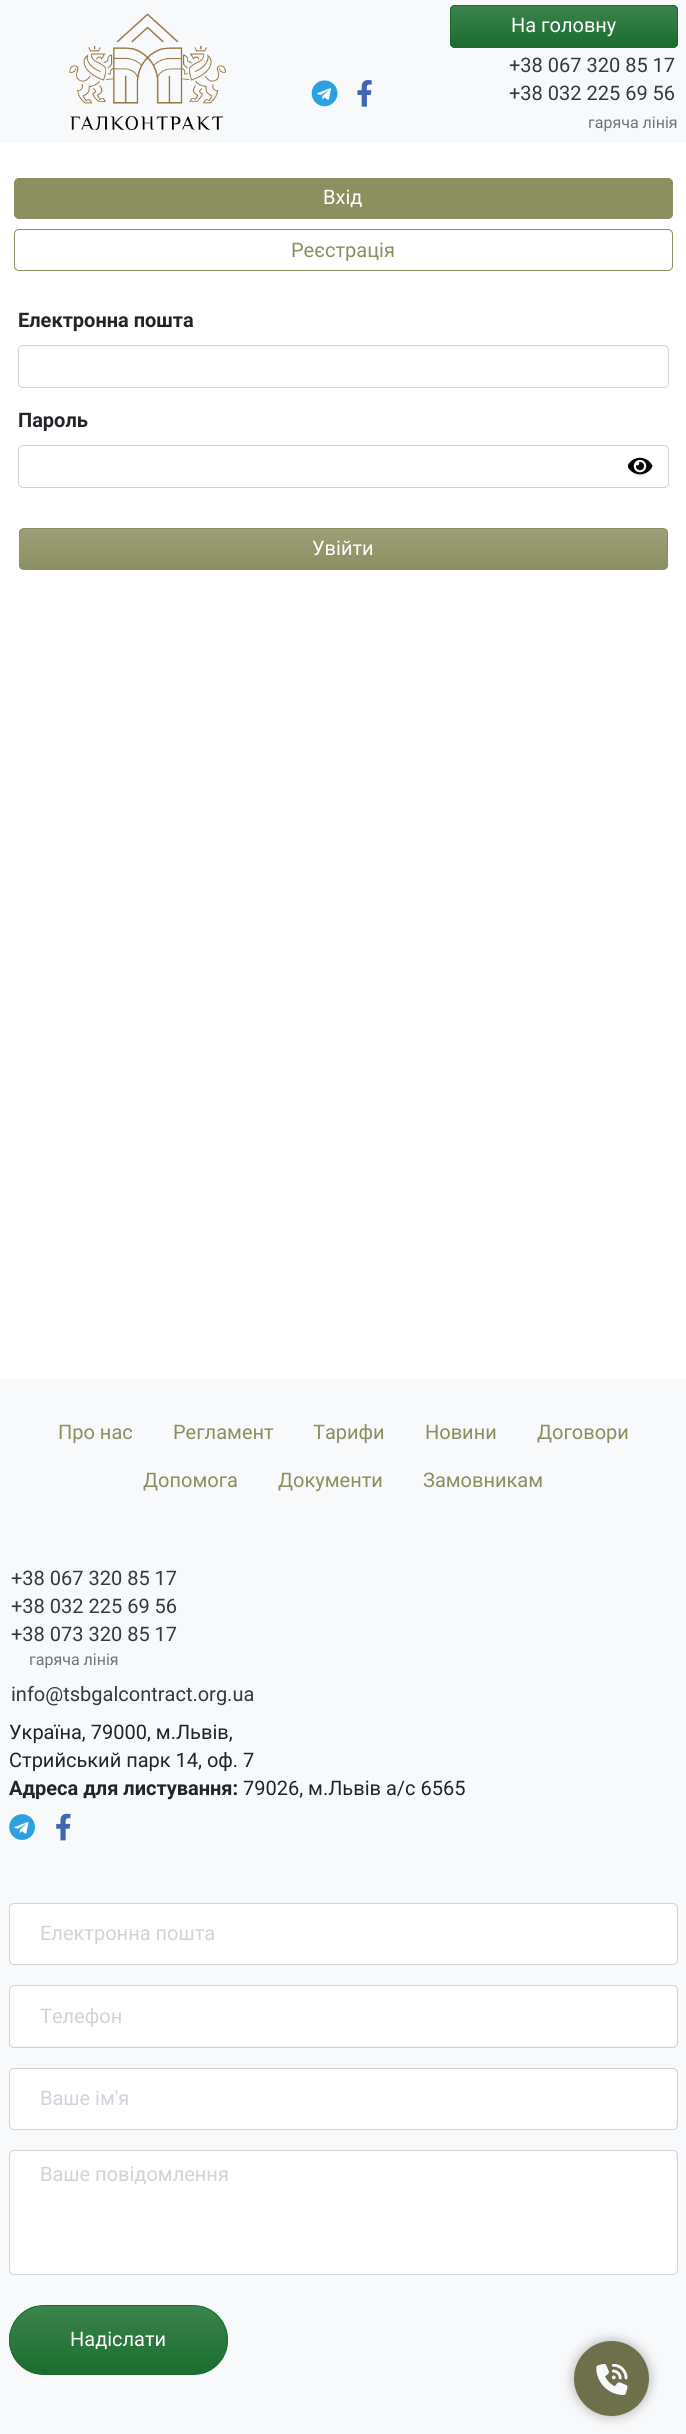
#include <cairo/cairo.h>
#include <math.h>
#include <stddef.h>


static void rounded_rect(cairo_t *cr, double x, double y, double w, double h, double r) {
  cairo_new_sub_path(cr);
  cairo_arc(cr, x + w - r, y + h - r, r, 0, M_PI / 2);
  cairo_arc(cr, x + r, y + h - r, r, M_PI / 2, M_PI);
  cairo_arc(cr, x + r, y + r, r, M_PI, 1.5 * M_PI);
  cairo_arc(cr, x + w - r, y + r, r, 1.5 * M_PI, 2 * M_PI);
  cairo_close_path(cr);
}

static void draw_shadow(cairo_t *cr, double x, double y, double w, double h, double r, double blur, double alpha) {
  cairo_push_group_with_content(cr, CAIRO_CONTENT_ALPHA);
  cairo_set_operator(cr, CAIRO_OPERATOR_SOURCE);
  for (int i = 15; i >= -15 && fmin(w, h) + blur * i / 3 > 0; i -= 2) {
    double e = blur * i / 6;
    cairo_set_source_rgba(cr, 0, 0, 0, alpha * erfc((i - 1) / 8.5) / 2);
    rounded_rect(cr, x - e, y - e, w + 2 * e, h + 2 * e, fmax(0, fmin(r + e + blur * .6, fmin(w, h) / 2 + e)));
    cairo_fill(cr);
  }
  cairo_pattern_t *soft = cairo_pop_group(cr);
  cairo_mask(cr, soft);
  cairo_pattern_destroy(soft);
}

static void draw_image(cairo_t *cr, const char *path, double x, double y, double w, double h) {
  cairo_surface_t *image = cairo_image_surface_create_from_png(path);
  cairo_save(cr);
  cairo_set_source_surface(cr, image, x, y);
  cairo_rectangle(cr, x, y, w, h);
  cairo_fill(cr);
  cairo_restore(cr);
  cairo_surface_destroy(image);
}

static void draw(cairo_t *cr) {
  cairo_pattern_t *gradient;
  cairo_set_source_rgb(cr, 1, 1, 1);
  cairo_paint(cr);
  cairo_set_source_rgb(cr, 248 / 255.0, 249 / 255.0, 250 / 255.0);
  cairo_rectangle(cr, 0, 0, 686, 143);
  cairo_fill(cr);
  draw_image(cr, "images/1.png", 69, 13, 158, 117);
  cairo_set_source_rgb(cr, 26 / 255.0, 109 / 255.0, 46 / 255.0);
  rounded_rect(cr, 450, 5, 228, 43, 5);
  cairo_fill(cr);
  cairo_save(cr);
  rounded_rect(cr, 450, 5, 228, 43, 5);
  cairo_clip(cr);
  gradient = cairo_pattern_create_linear(564, 6.2, 564, 46);
  cairo_pattern_add_color_stop_rgba(gradient, 0, 60 / 255.0, 131 / 255.0, 77 / 255.0, 1);
  cairo_pattern_add_color_stop_rgba(gradient, 1, 26 / 255.0, 109 / 255.0, 46 / 255.0, 1);
  cairo_set_source(cr, gradient);
  cairo_pattern_destroy(gradient);
  cairo_rectangle(cr, 450, 6, 228, 40);
  cairo_fill(cr);
  cairo_restore(cr);
  rounded_rect(cr, 450.5, 5.5, 227, 42, 4.5);
  cairo_set_line_width(cr, 1);
  cairo_stroke(cr);
  draw_image(cr, "images/2.png", 311, 80, 27, 27);
  draw_image(cr, "images/3.png", 357, 80, 15, 27);
  cairo_set_source_rgb(cr, 140 / 255.0, 143 / 255.0, 96 / 255.0);
  rounded_rect(cr, 14.5, 178.5, 658, 40, 4.5);
  cairo_fill_preserve(cr);
  cairo_stroke(cr);
  rounded_rect(cr, 14.5, 229.5, 658, 41, 4.5);
  cairo_stroke(cr);
  rounded_rect(cr, 18.5, 345.5, 650, 42, 4.5);
  cairo_set_source_rgb(cr, 206 / 255.0, 212 / 255.0, 218 / 255.0);
  cairo_stroke(cr);
  rounded_rect(cr, 18.5, 445.5, 650, 42, 4.5);
  cairo_stroke(cr);
  draw_image(cr, "images/4.png", 628, 457, 25, 18);
  cairo_save(cr);
  rounded_rect(cr, 19, 528, 649, 42, 5);
  cairo_clip(cr);
  gradient = cairo_pattern_create_linear(343, 529, 343, 569);
  cairo_pattern_add_color_stop_rgba(gradient, 0, 157 / 255.0, 160 / 255.0, 120 / 255.0, 1);
  cairo_pattern_add_color_stop_rgba(gradient, 1, 140 / 255.0, 143 / 255.0, 96 / 255.0, 1);
  cairo_set_source(cr, gradient);
  cairo_pattern_destroy(gradient);
  cairo_rectangle(cr, 19, 529, 649, 40);
  cairo_fill(cr);
  cairo_restore(cr);
  rounded_rect(cr, 19.5, 528.5, 648, 41, 4.5);
  cairo_set_source_rgb(cr, 140 / 255.0, 143 / 255.0, 96 / 255.0);
  cairo_stroke(cr);
  cairo_set_source_rgb(cr, 248 / 255.0, 249 / 255.0, 250 / 255.0);
  cairo_rectangle(cr, 0, 1379, 686, 1055);
  cairo_fill(cr);
  draw_image(cr, "images/5.png", 9, 1814, 26, 26);
  draw_image(cr, "images/6.png", 56, 1813, 15, 28);
  cairo_set_source_rgb(cr, 1, 1, 1);
  rounded_rect(cr, 10, 1904, 666, 60, 4);
  cairo_fill(cr);
  rounded_rect(cr, 9.5, 1903.5, 668, 61, 4.5);
  cairo_set_source_rgb(cr, 206 / 255.0, 212 / 255.0, 218 / 255.0);
  cairo_stroke(cr);
  cairo_set_source_rgb(cr, 1, 1, 1);
  rounded_rect(cr, 10, 1986, 666, 60, 4);
  cairo_fill(cr);
  rounded_rect(cr, 9.5, 1985.5, 668, 62, 4.5);
  cairo_set_source_rgb(cr, 206 / 255.0, 212 / 255.0, 218 / 255.0);
  cairo_stroke(cr);
  cairo_set_source_rgb(cr, 1, 1, 1);
  rounded_rect(cr, 10, 2069, 666, 60, 4);
  cairo_fill(cr);
  rounded_rect(cr, 9.5, 2068.5, 668, 61, 4.5);
  cairo_set_source_rgb(cr, 206 / 255.0, 212 / 255.0, 218 / 255.0);
  cairo_stroke(cr);
  cairo_set_source_rgb(cr, 1, 1, 1);
  rounded_rect(cr, 10, 2151, 666, 123, 4);
  cairo_fill(cr);
  rounded_rect(cr, 9.5, 2150.5, 668, 124, 4.5);
  cairo_set_source_rgb(cr, 206 / 255.0, 212 / 255.0, 218 / 255.0);
  cairo_stroke(cr);
  cairo_save(cr);
  rounded_rect(cr, 9, 2305, 219, 70, 35);
  cairo_clip(cr);
  gradient = cairo_pattern_create_linear(118, 2306, 118, 2374);
  cairo_pattern_add_color_stop_rgba(gradient, 0, 60 / 255.0, 131 / 255.0, 77 / 255.0, 1);
  cairo_pattern_add_color_stop_rgba(gradient, 1, 26 / 255.0, 109 / 255.0, 46 / 255.0, 1);
  cairo_set_source(cr, gradient);
  cairo_pattern_destroy(gradient);
  cairo_rectangle(cr, 9, 2306, 219, 68);
  cairo_fill(cr);
  cairo_restore(cr);
  rounded_rect(cr, 9.5, 2305.5, 218, 69, 34.5);
  cairo_set_source_rgb(cr, 26 / 255.0, 109 / 255.0, 46 / 255.0);
  cairo_stroke(cr);
  cairo_set_source_rgb(cr, 0, 0, 0);
  draw_shadow(cr, 574, 2341, 75, 75, 37.5, 6, 0.3);
  cairo_set_source_rgb(cr, 110 / 255.0, 112 / 255.0, 76 / 255.0);
  cairo_arc(cr, 611.5, 2378.5, 37.5, 0, 2 * M_PI);
  cairo_fill(cr);
  draw_image(cr, "images/7.png", 596, 2364, 32, 31);
  cairo_select_font_face(cr, "Roboto", CAIRO_FONT_SLANT_NORMAL, CAIRO_FONT_WEIGHT_NORMAL);
  cairo_set_font_size(cr, 20);
  cairo_set_source_rgb(cr, 1, 1, 1);
  cairo_move_to(cr, 511, 32);
  cairo_show_text(cr, "На головну");
  cairo_set_source_rgb(cr, 52 / 255.0, 58 / 255.0, 64 / 255.0);
  cairo_move_to(cr, 509, 72);
  cairo_show_text(cr, "+38 067 320 85 17");
  cairo_move_to(cr, 509, 100);
  cairo_show_text(cr, "+38 032 225 69 56");
  cairo_set_font_size(cr, 16);
  cairo_set_source_rgb(cr, 108 / 255.0, 117 / 255.0, 125 / 255.0);
  cairo_move_to(cr, 588, 128);
  cairo_show_text(cr, "гаряча лінія");
  cairo_set_font_size(cr, 20);
  cairo_set_source_rgb(cr, 1, 1, 1);
  cairo_move_to(cr, 323, 204);
  cairo_show_text(cr, "Вхід");
  cairo_set_source_rgb(cr, 140 / 255.0, 143 / 255.0, 96 / 255.0);
  cairo_move_to(cr, 291, 257);
  cairo_show_text(cr, "Реєстрація");
  cairo_select_font_face(cr, "Roboto", CAIRO_FONT_SLANT_NORMAL, CAIRO_FONT_WEIGHT_BOLD);
  cairo_set_source_rgb(cr, 33 / 255.0, 37 / 255.0, 41 / 255.0);
  cairo_move_to(cr, 18, 327);
  cairo_show_text(cr, "Електронна пошта");
  cairo_move_to(cr, 18, 427);
  cairo_show_text(cr, "Пароль");
  cairo_select_font_face(cr, "Roboto", CAIRO_FONT_SLANT_NORMAL, CAIRO_FONT_WEIGHT_NORMAL);
  cairo_set_source_rgb(cr, 1, 1, 1);
  cairo_move_to(cr, 312, 555);
  cairo_show_text(cr, "Увійти");
  cairo_set_source_rgb(cr, 140 / 255.0, 143 / 255.0, 96 / 255.0);
  cairo_move_to(cr, 58, 1439);
  cairo_show_text(cr, "Про нас");
  cairo_move_to(cr, 173, 1439);
  cairo_show_text(cr, "Регламент");
  cairo_move_to(cr, 313, 1439);
  cairo_show_text(cr, "Тарифи");
  cairo_move_to(cr, 425, 1439);
  cairo_show_text(cr, "Новини");
  cairo_move_to(cr, 537, 1439);
  cairo_show_text(cr, "Договори");
  cairo_move_to(cr, 143, 1487);
  cairo_show_text(cr, "Допомога");
  cairo_move_to(cr, 278, 1487);
  cairo_show_text(cr, "Документи");
  cairo_move_to(cr, 423, 1487);
  cairo_show_text(cr, "Замовникам");
  cairo_set_source_rgb(cr, 52 / 255.0, 58 / 255.0, 64 / 255.0);
  cairo_move_to(cr, 11, 1585);
  cairo_show_text(cr, "+38 067 320 85 17");
  cairo_move_to(cr, 11, 1613);
  cairo_show_text(cr, "+38 032 225 69 56");
  cairo_move_to(cr, 11, 1641);
  cairo_show_text(cr, "+38 073 320 85 17");
  cairo_set_font_size(cr, 16);
  cairo_set_source_rgb(cr, 108 / 255.0, 117 / 255.0, 125 / 255.0);
  cairo_move_to(cr, 29, 1665);
  cairo_show_text(cr, "гаряча лінія");
  cairo_set_font_size(cr, 20);
  cairo_set_source_rgb(cr, 52 / 255.0, 58 / 255.0, 64 / 255.0);
  cairo_move_to(cr, 11, 1701);
  cairo_show_text(cr, "info@tsbgalcontract.org.ua");
  cairo_set_source_rgb(cr, 33 / 255.0, 37 / 255.0, 41 / 255.0);
  cairo_move_to(cr, 9, 1739);
  cairo_show_text(cr, "Україна, 79000, м.Львів,");
  cairo_move_to(cr, 9, 1767);
  cairo_show_text(cr, "Стрийський парк 14, оф. 7");
  cairo_select_font_face(cr, "Roboto", CAIRO_FONT_SLANT_NORMAL, CAIRO_FONT_WEIGHT_BOLD);
  cairo_move_to(cr, 9, 1795);
  cairo_show_text(cr, "Адреса для листування:");
  cairo_select_font_face(cr, "Roboto", CAIRO_FONT_SLANT_NORMAL, CAIRO_FONT_WEIGHT_NORMAL);
  cairo_move_to(cr, 243, 1795);
  cairo_show_text(cr, "79026, м.Львів а/с 6565");
  cairo_set_source_rgb(cr, 206 / 255.0, 212 / 255.0, 218 / 255.0);
  cairo_move_to(cr, 40, 1940);
  cairo_show_text(cr, "Електронна пошта");
  cairo_move_to(cr, 40, 2023);
  cairo_show_text(cr, "Телефон");
  cairo_move_to(cr, 40, 2105);
  cairo_show_text(cr, "Ваше ім'я");
  cairo_move_to(cr, 40, 2181);
  cairo_show_text(cr, "Ваше повідомлення");
  cairo_set_source_rgb(cr, 1, 1, 1);
  cairo_move_to(cr, 70, 2346);
  cairo_show_text(cr, "Надіслати");
}

int main(void) {
  cairo_surface_t *surface = cairo_image_surface_create(CAIRO_FORMAT_RGB24, 686, 2434);
  cairo_t *cr = cairo_create(surface);
  cairo_font_options_t *options = cairo_font_options_create();
  cairo_font_options_set_hint_metrics(options, CAIRO_HINT_METRICS_OFF);
  cairo_font_options_set_hint_style(options, CAIRO_HINT_STYLE_NONE);
  cairo_set_font_options(cr, options);
  cairo_set_miter_limit(cr, 4);
  draw(cr);
  cairo_surface_write_to_png(surface, "out.png");
  cairo_font_options_destroy(options);
  cairo_destroy(cr);
  cairo_surface_destroy(surface);
  return 0;
}
